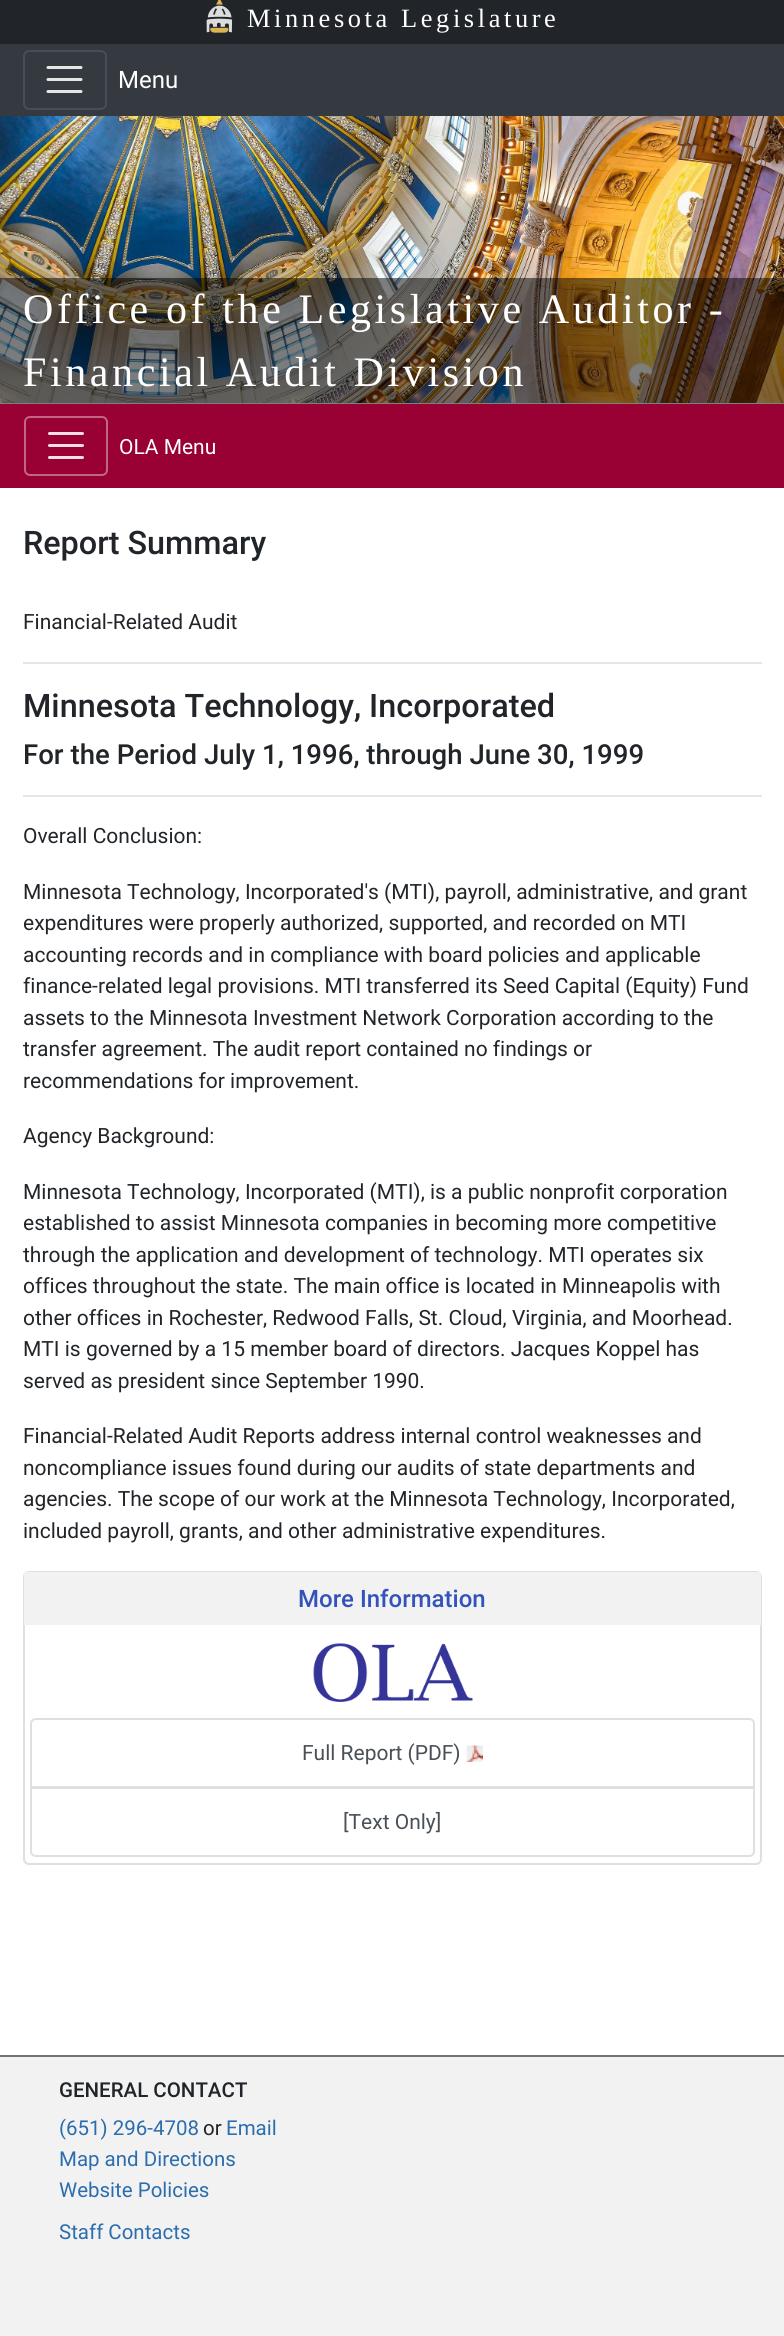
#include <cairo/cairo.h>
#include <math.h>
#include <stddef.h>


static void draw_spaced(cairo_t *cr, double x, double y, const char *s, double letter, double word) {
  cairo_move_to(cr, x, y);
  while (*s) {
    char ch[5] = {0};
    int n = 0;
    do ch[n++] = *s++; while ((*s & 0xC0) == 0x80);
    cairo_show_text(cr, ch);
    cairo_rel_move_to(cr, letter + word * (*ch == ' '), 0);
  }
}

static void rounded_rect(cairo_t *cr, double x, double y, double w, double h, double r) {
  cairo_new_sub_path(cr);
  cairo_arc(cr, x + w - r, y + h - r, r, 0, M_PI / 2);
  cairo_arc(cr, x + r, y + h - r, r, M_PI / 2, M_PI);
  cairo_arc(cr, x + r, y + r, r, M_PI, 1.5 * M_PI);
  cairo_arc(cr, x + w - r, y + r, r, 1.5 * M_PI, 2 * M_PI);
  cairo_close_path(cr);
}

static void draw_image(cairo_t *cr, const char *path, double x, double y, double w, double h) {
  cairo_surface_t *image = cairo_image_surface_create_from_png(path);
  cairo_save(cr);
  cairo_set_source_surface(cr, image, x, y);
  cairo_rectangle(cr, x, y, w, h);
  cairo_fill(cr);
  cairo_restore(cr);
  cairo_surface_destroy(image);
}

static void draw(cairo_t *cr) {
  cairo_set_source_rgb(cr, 1, 1, 1);
  cairo_paint(cr);
  cairo_set_source_rgb(cr, 33 / 255.0, 37 / 255.0, 41 / 255.0);
  cairo_rectangle(cr, 0, 0, 784, 44);
  cairo_fill(cr);
  draw_image(cr, "images/1.png", 206, 0, 27, 33);
  cairo_set_source_rgb(cr, 52 / 255.0, 58 / 255.0, 64 / 255.0);
  cairo_rectangle(cr, 0, 44, 784, 72);
  cairo_fill(cr);
  rounded_rect(cr, 24, 51, 82, 58, 5);
  cairo_set_source_rgb(cr, 72 / 255.0, 78 / 255.0, 83 / 255.0);
  cairo_stroke(cr);
  cairo_new_path(cr);
  cairo_move_to(cr, 48, 67.5);
  cairo_line_to(cr, 81, 67.5);
  cairo_move_to(cr, 48, 79.5);
  cairo_line_to(cr, 81, 79.5);
  cairo_move_to(cr, 48, 91.5);
  cairo_line_to(cr, 81, 91.5);
  cairo_set_source_rgb(cr, 230 / 255.0, 230 / 255.0, 231 / 255.0);
  cairo_set_line_width(cr, 3);
  cairo_set_line_cap(cr, CAIRO_LINE_CAP_ROUND);
  cairo_stroke(cr);
  draw_image(cr, "images/2.png", 0, 116, 784, 287);
  cairo_set_source_rgba(cr, 0, 0, 0, 0.5);
  cairo_rectangle(cr, 0, 278, 784, 126);
  cairo_fill(cr);
  cairo_set_source_rgb(cr, 153 / 255.0, 0, 51 / 255.0);
  cairo_rectangle(cr, 0, 404, 784, 84);
  cairo_fill(cr);
  rounded_rect(cr, 25, 417, 82, 58, 5);
  cairo_set_source_rgb(cr, 194 / 255.0, 102 / 255.0, 133 / 255.0);
  cairo_set_line_width(cr, 2);
  cairo_set_line_cap(cr, CAIRO_LINE_CAP_BUTT);
  cairo_stroke(cr);
  cairo_new_path(cr);
  cairo_move_to(cr, 49.5, 433.5);
  cairo_line_to(cr, 82.5, 433.5);
  cairo_move_to(cr, 49.5, 445.5);
  cairo_line_to(cr, 82.5, 445.5);
  cairo_move_to(cr, 49.5, 457.5);
  cairo_line_to(cr, 82.5, 457.5);
  cairo_set_source_rgb(cr, 242 / 255.0, 223 / 255.0, 230 / 255.0);
  cairo_set_line_width(cr, 3);
  cairo_set_line_cap(cr, CAIRO_LINE_CAP_ROUND);
  cairo_stroke(cr);
  cairo_set_source_rgb(cr, 230 / 255.0, 230 / 255.0, 230 / 255.0);
  cairo_rectangle(cr, 23, 662, 739, 2);
  cairo_fill(cr);
  cairo_rectangle(cr, 23, 795, 739, 2);
  cairo_fill(cr);
  rounded_rect(cr, 24, 1572, 737, 292, 5);
  cairo_set_source_rgb(cr, 223 / 255.0, 223 / 255.0, 223 / 255.0);
  cairo_set_line_width(cr, 2);
  cairo_set_line_cap(cr, CAIRO_LINE_CAP_BUTT);
  cairo_stroke(cr);
  cairo_set_source_rgb(cr, 242 / 255.0, 242 / 255.0, 242 / 255.0);
  cairo_rectangle(cr, 24, 1572, 737, 53);
  cairo_fill(cr);
  draw_image(cr, "images/3.png", 313, 1643, 160, 59);
  cairo_new_path(cr);
  cairo_move_to(cr, 36, 1719);
  cairo_line_to(cr, 749, 1719);
  cairo_curve_to(cr, 752, 1719, 754, 1721, 754, 1724);
  cairo_line_to(cr, 754, 1787);
  cairo_line_to(cr, 31, 1787);
  cairo_line_to(cr, 31, 1724);
  cairo_curve_to(cr, 31, 1721, 33, 1719, 36, 1719);
  cairo_close_path(cr);
  cairo_set_source_rgb(cr, 223 / 255.0, 223 / 255.0, 223 / 255.0);
  cairo_stroke(cr);
  draw_image(cr, "images/4.png", 466, 1745, 17, 17);
  cairo_set_source_rgb(cr, 1, 1, 1);
  cairo_new_path(cr);
  cairo_move_to(cr, 31, 1788);
  cairo_line_to(cr, 754, 1788);
  cairo_line_to(cr, 754, 1851);
  cairo_curve_to(cr, 754, 1854, 752, 1856, 749, 1856);
  cairo_line_to(cr, 36, 1856);
  cairo_curve_to(cr, 33, 1856, 31, 1854, 31, 1851);
  cairo_close_path(cr);
  cairo_fill_preserve(cr);
  cairo_set_source_rgb(cr, 223 / 255.0, 223 / 255.0, 223 / 255.0);
  cairo_stroke(cr);
  cairo_set_source_rgb(cr, 242 / 255.0, 242 / 255.0, 242 / 255.0);
  cairo_rectangle(cr, 0, 2057, 784, 279);
  cairo_fill(cr);
  cairo_set_source_rgb(cr, 115 / 255.0, 115 / 255.0, 115 / 255.0);
  cairo_rectangle(cr, 0, 2055, 784, 2);
  cairo_fill(cr);
  cairo_select_font_face(cr, "Liberation Serif", CAIRO_FONT_SLANT_NORMAL, CAIRO_FONT_WEIGHT_NORMAL);
  cairo_set_font_size(cr, 26.4);
  cairo_set_source_rgb(cr, 1, 1, 1);
  draw_spaced(cr, 247, 27, "Minnesota Legislature", 3.6, 0);
  cairo_select_font_face(cr, "Roboto", CAIRO_FONT_SLANT_NORMAL, CAIRO_FONT_WEIGHT_NORMAL);
  cairo_set_font_size(cr, 24);
  cairo_move_to(cr, 118, 88);
  cairo_show_text(cr, "Menu");
  cairo_select_font_face(cr, "Liberation Serif", CAIRO_FONT_SLANT_NORMAL, CAIRO_FONT_WEIGHT_NORMAL);
  cairo_set_font_size(cr, 42);
  draw_spaced(cr, 23, 323, "Office of the Legislative Auditor -", 3.6, 0);
  draw_spaced(cr, 23, 386, "Financial Audit Division", 3.6, 0);
  cairo_select_font_face(cr, "Roboto", CAIRO_FONT_SLANT_NORMAL, CAIRO_FONT_WEIGHT_NORMAL);
  cairo_set_font_size(cr, 21);
  cairo_move_to(cr, 119, 454);
  cairo_show_text(cr, "OLA Menu");
  cairo_select_font_face(cr, "Roboto Medium", CAIRO_FONT_SLANT_NORMAL, CAIRO_FONT_WEIGHT_NORMAL);
  cairo_set_font_size(cr, 32.4);
  cairo_set_source_rgb(cr, 33 / 255.0, 37 / 255.0, 41 / 255.0);
  cairo_move_to(cr, 23, 554);
  cairo_show_text(cr, "Report Summary");
  cairo_select_font_face(cr, "Roboto", CAIRO_FONT_SLANT_NORMAL, CAIRO_FONT_WEIGHT_NORMAL);
  cairo_set_font_size(cr, 21);
  cairo_move_to(cr, 23, 629);
  cairo_show_text(cr, "Financial-Related Audit");
  cairo_select_font_face(cr, "Roboto Medium", CAIRO_FONT_SLANT_NORMAL, CAIRO_FONT_WEIGHT_NORMAL);
  cairo_set_font_size(cr, 32.4);
  cairo_move_to(cr, 23, 717);
  cairo_show_text(cr, "Minnesota Technology, Incorporated");
  cairo_set_font_size(cr, 27.6);
  cairo_move_to(cr, 23, 764);
  cairo_show_text(cr, "For the Period July 1, 1996, through June 30, 1999");
  cairo_select_font_face(cr, "Roboto", CAIRO_FONT_SLANT_NORMAL, CAIRO_FONT_WEIGHT_NORMAL);
  cairo_set_font_size(cr, 21);
  cairo_move_to(cr, 23, 843);
  cairo_show_text(cr, "Overall Conclusion:");
  cairo_move_to(cr, 23, 899);
  cairo_show_text(cr, "Minnesota Technology, Incorporated's (MTI), payroll, administrative, and grant");
  cairo_move_to(cr, 23, 930);
  cairo_show_text(cr, "expenditures were properly authorized, supported, and recorded on MTI");
  cairo_move_to(cr, 23, 962);
  cairo_show_text(cr, "accounting records and in compliance with board policies and applicable");
  cairo_move_to(cr, 23, 993);
  cairo_show_text(cr, "finance-related legal provisions. MTI transferred its Seed Capital (Equity) Fund");
  cairo_move_to(cr, 23, 1025);
  cairo_show_text(cr, "assets to the Minnesota Investment Network Corporation according to the");
  cairo_move_to(cr, 23, 1056);
  cairo_show_text(cr, "transfer agreement. The audit report contained no findings or");
  cairo_move_to(cr, 23, 1088);
  cairo_show_text(cr, "recommendations for improvement.");
  cairo_move_to(cr, 23, 1143);
  cairo_show_text(cr, "Agency Background:");
  cairo_move_to(cr, 23, 1199);
  cairo_show_text(cr, "Minnesota Technology, Incorporated (MTI), is a public nonprofit corporation");
  cairo_move_to(cr, 23, 1230);
  cairo_show_text(cr, "established to assist Minnesota companies in becoming more competitive");
  cairo_move_to(cr, 23, 1262);
  cairo_show_text(cr, "through the application and development of technology. MTI operates six");
  cairo_move_to(cr, 23, 1293);
  cairo_show_text(cr, "offices throughout the state. The main office is located in Minneapolis with");
  cairo_move_to(cr, 23, 1325);
  cairo_show_text(cr, "other offices in Rochester, Redwood Falls, St. Cloud, Virginia, and Moorhead.");
  cairo_move_to(cr, 23, 1356);
  cairo_show_text(cr, "MTI is governed by a 15 member board of directors. Jacques Koppel has");
  cairo_move_to(cr, 23, 1388);
  cairo_show_text(cr, "served as president since September 1990.");
  cairo_move_to(cr, 23, 1443);
  cairo_show_text(cr, "Financial-Related Audit Reports address internal control weaknesses and");
  cairo_move_to(cr, 23, 1475);
  cairo_show_text(cr, "noncompliance issues found during our audits of state departments and");
  cairo_move_to(cr, 23, 1506);
  cairo_show_text(cr, "agencies. The scope of our work at the Minnesota Technology, Incorporated,");
  cairo_move_to(cr, 23, 1538);
  cairo_show_text(cr, "included payroll, grants, and other administrative expenditures.");
  cairo_select_font_face(cr, "Roboto Medium", CAIRO_FONT_SLANT_NORMAL, CAIRO_FONT_WEIGHT_NORMAL);
  cairo_set_font_size(cr, 24);
  cairo_set_source_rgb(cr, 51 / 255.0, 83 / 255.0, 187 / 255.0);
  cairo_move_to(cr, 298, 1607);
  cairo_show_text(cr, "More Information");
  cairo_select_font_face(cr, "Roboto", CAIRO_FONT_SLANT_NORMAL, CAIRO_FONT_WEIGHT_NORMAL);
  cairo_set_font_size(cr, 21);
  cairo_set_source_rgb(cr, 73 / 255.0, 80 / 255.0, 87 / 255.0);
  cairo_move_to(cr, 302, 1760);
  cairo_show_text(cr, "Full Report (PDF)");
  cairo_move_to(cr, 343, 1829);
  cairo_show_text(cr, "[Text Only]");
  cairo_select_font_face(cr, "Roboto Medium", CAIRO_FONT_SLANT_NORMAL, CAIRO_FONT_WEIGHT_NORMAL);
  cairo_set_font_size(cr, 20.5);
  cairo_set_source_rgb(cr, 33 / 255.0, 37 / 255.0, 41 / 255.0);
  cairo_move_to(cr, 59, 2097);
  cairo_show_text(cr, "GENERAL CONTACT");
  cairo_select_font_face(cr, "Roboto", CAIRO_FONT_SLANT_NORMAL, CAIRO_FONT_WEIGHT_NORMAL);
  cairo_set_source_rgb(cr, 43 / 255.0, 109 / 255.0, 173 / 255.0);
  cairo_move_to(cr, 59, 2135);
  cairo_show_text(cr, "(651) 296-4708");
  cairo_set_source_rgb(cr, 33 / 255.0, 37 / 255.0, 41 / 255.0);
  cairo_move_to(cr, 203, 2135);
  cairo_show_text(cr, "or");
  cairo_set_source_rgb(cr, 43 / 255.0, 109 / 255.0, 173 / 255.0);
  cairo_move_to(cr, 226, 2135);
  cairo_show_text(cr, "Email");
  cairo_move_to(cr, 59, 2166);
  cairo_show_text(cr, "Map and Directions");
  cairo_move_to(cr, 59, 2197);
  cairo_show_text(cr, "Website Policies");
  cairo_move_to(cr, 59, 2239);
  cairo_show_text(cr, "Staff Contacts");
}

int main(void) {
  cairo_surface_t *surface = cairo_image_surface_create(CAIRO_FORMAT_RGB24, 784, 2336);
  cairo_t *cr = cairo_create(surface);
  cairo_font_options_t *options = cairo_font_options_create();
  cairo_font_options_set_hint_metrics(options, CAIRO_HINT_METRICS_OFF);
  cairo_font_options_set_hint_style(options, CAIRO_HINT_STYLE_NONE);
  cairo_set_font_options(cr, options);
  cairo_set_miter_limit(cr, 4);
  draw(cr);
  cairo_surface_write_to_png(surface, "out.png");
  cairo_font_options_destroy(options);
  cairo_destroy(cr);
  cairo_surface_destroy(surface);
  return 0;
}
